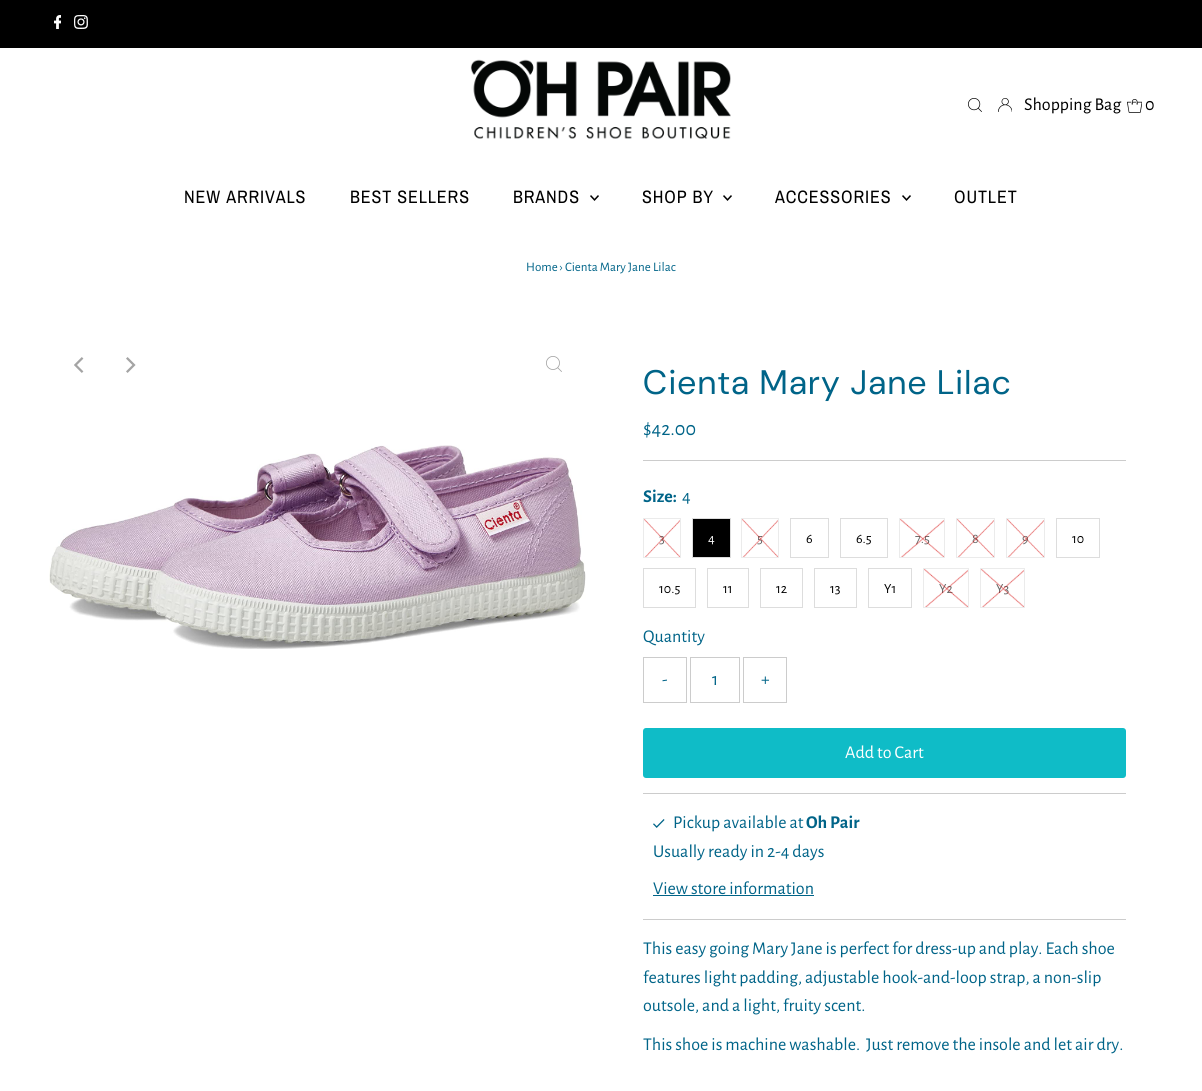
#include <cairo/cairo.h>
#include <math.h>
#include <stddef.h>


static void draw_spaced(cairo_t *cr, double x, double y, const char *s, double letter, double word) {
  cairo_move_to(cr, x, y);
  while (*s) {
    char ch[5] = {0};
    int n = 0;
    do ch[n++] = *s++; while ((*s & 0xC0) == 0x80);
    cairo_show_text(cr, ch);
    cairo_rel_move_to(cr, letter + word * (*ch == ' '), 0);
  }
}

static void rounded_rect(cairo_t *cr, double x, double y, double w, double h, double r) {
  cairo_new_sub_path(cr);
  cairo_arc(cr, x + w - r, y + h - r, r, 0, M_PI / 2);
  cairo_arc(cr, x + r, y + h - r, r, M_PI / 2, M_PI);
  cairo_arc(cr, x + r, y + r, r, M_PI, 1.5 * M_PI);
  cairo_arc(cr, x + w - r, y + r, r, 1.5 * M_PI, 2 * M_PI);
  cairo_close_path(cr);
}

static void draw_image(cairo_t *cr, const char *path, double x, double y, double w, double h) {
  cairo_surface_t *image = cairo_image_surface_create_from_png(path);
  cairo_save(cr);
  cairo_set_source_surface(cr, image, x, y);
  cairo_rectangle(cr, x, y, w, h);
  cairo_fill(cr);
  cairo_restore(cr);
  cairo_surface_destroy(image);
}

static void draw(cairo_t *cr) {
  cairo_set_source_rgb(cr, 1, 1, 1);
  cairo_paint(cr);
  cairo_set_source_rgb(cr, 0, 0, 0);
  cairo_rectangle(cr, 0, 0, 1202, 48);
  cairo_fill(cr);
  draw_image(cr, "images/1.png", 54, 15, 7, 14);
  draw_image(cr, "images/2.png", 74, 15, 14, 14);
  draw_image(cr, "images/3.png", 470, 59, 261, 80);
  draw_image(cr, "images/4.png", 968, 98, 14, 14);
  draw_image(cr, "images/5.png", 998, 98, 14, 14);
  draw_image(cr, "images/6.png", 1127, 99, 15, 14);
  draw_image(cr, "images/7.png", 590, 195, 9, 6);
  draw_image(cr, "images/7.png", 723, 195, 9, 6);
  draw_image(cr, "images/7.png", 902, 195, 9, 6);
  draw_image(cr, "images/8.png", 546, 356, 16, 16);
  draw_image(cr, "images/9.png", 49, 445, 537, 204);
  draw_image(cr, "images/10.png", 74, 357, 10, 16);
  draw_image(cr, "images/11.png", 126, 357, 10, 16);
  cairo_set_source_rgb(cr, 204 / 255.0, 204 / 255.0, 204 / 255.0);
  cairo_rectangle(cr, 643, 460, 483, 1);
  cairo_fill(cr);
  cairo_rectangle(cr, 643.5, 518.5, 37, 39);
  cairo_set_source_rgb(cr, 235 / 255.0, 235 / 255.0, 235 / 255.0);
  cairo_set_line_width(cr, 1);
  cairo_stroke(cr);
  cairo_set_source_rgb(cr, 0, 0, 0);
  cairo_rectangle(cr, 692.5, 518.5, 38, 39);
  cairo_fill_preserve(cr);
  cairo_set_source_rgb(cr, 221 / 255.0, 221 / 255.0, 221 / 255.0);
  cairo_stroke(cr);
  cairo_rectangle(cr, 741.5, 518.5, 37, 39);
  cairo_set_source_rgb(cr, 235 / 255.0, 235 / 255.0, 235 / 255.0);
  cairo_stroke(cr);
  cairo_rectangle(cr, 790.5, 518.5, 38, 39);
  cairo_set_source_rgb(cr, 221 / 255.0, 221 / 255.0, 221 / 255.0);
  cairo_stroke(cr);
  cairo_rectangle(cr, 840.5, 518.5, 47, 39);
  cairo_stroke(cr);
  cairo_rectangle(cr, 899.5, 518.5, 45, 39);
  cairo_set_source_rgb(cr, 235 / 255.0, 235 / 255.0, 235 / 255.0);
  cairo_stroke(cr);
  cairo_rectangle(cr, 956.5, 518.5, 38, 39);
  cairo_stroke(cr);
  cairo_rectangle(cr, 1006.5, 518.5, 38, 39);
  cairo_stroke(cr);
  cairo_rectangle(cr, 1056.5, 518.5, 43, 39);
  cairo_set_source_rgb(cr, 221 / 255.0, 221 / 255.0, 221 / 255.0);
  cairo_stroke(cr);
  cairo_rectangle(cr, 643.5, 568.5, 52, 39);
  cairo_stroke(cr);
  cairo_rectangle(cr, 707.5, 568.5, 41, 39);
  cairo_stroke(cr);
  cairo_rectangle(cr, 760.5, 568.5, 42, 39);
  cairo_stroke(cr);
  cairo_rectangle(cr, 814.5, 568.5, 42, 39);
  cairo_stroke(cr);
  cairo_rectangle(cr, 868.5, 568.5, 43, 39);
  cairo_stroke(cr);
  cairo_rectangle(cr, 923.5, 568.5, 45, 39);
  cairo_set_source_rgb(cr, 235 / 255.0, 235 / 255.0, 235 / 255.0);
  cairo_stroke(cr);
  cairo_rectangle(cr, 980.5, 568.5, 44, 39);
  cairo_stroke(cr);
  cairo_rectangle(cr, 643.5, 657.5, 43, 45);
  cairo_set_source_rgb(cr, 204 / 255.0, 204 / 255.0, 204 / 255.0);
  cairo_stroke(cr);
  cairo_rectangle(cr, 690.5, 657.5, 49, 45);
  cairo_stroke(cr);
  cairo_rectangle(cr, 743.5, 657.5, 43, 45);
  cairo_stroke(cr);
  cairo_set_source_rgb(cr, 15 / 255.0, 188 / 255.0, 199 / 255.0);
  rounded_rect(cr, 643, 728, 483, 50, 3);
  cairo_fill(cr);
  cairo_set_source_rgb(cr, 204 / 255.0, 204 / 255.0, 204 / 255.0);
  cairo_rectangle(cr, 643, 793, 483, 1);
  cairo_fill(cr);
  cairo_rectangle(cr, 643, 919, 483, 1);
  cairo_fill(cr);
  draw_image(cr, "images/19.png", 653, 819, 12, 9);
  cairo_set_source_rgb(cr, 0, 100 / 255.0, 136 / 255.0);
  cairo_rectangle(cr, 653, 895, 161, 1);
  cairo_fill(cr);
  cairo_select_font_face(cr, "Alegreya Sans", CAIRO_FONT_SLANT_NORMAL, CAIRO_FONT_WEIGHT_NORMAL);
  cairo_set_font_size(cr, 18);
  cairo_set_source_rgb(cr, 0, 0, 0);
  cairo_move_to(cr, 1024, 110);
  cairo_show_text(cr, "Shopping Bag");
  cairo_move_to(cr, 1145, 110);
  cairo_show_text(cr, "0");
  cairo_select_font_face(cr, "Archivo Narrow", CAIRO_FONT_SLANT_NORMAL, CAIRO_FONT_WEIGHT_NORMAL);
  draw_spaced(cr, 184, 203, "NEW ARRIVALS", 0.9, 0);
  draw_spaced(cr, 350, 203, "BEST SELLERS", 0.9, 0);
  draw_spaced(cr, 513, 203, "BRANDS", 0.9, 0);
  draw_spaced(cr, 642, 203, "SHOP BY", 0.9, 0);
  draw_spaced(cr, 775, 203, "ACCESSORIES", 0.9, 0);
  draw_spaced(cr, 954, 203, "OUTLET", 0.9, 0);
  cairo_select_font_face(cr, "Alegreya Sans", CAIRO_FONT_SLANT_NORMAL, CAIRO_FONT_WEIGHT_NORMAL);
  cairo_set_font_size(cr, 13);
  cairo_set_source_rgb(cr, 0, 100 / 255.0, 136 / 255.0);
  cairo_move_to(cr, 526, 271);
  cairo_show_text(cr, "Home › Cienta Mary Jane Lilac");
  cairo_select_font_face(cr, "DM Sans", CAIRO_FONT_SLANT_NORMAL, CAIRO_FONT_WEIGHT_NORMAL);
  cairo_set_font_size(cr, 34);
  draw_spaced(cr, 643, 394, "Cienta Mary Jane Lilac", 1.7, 0);
  cairo_select_font_face(cr, "Alegreya Sans", CAIRO_FONT_SLANT_NORMAL, CAIRO_FONT_WEIGHT_NORMAL);
  cairo_set_font_size(cr, 20);
  cairo_move_to(cr, 643, 435);
  cairo_show_text(cr, "$42.00");
  cairo_select_font_face(cr, "Alegreya Sans", CAIRO_FONT_SLANT_NORMAL, CAIRO_FONT_WEIGHT_BOLD);
  cairo_set_font_size(cr, 18);
  cairo_move_to(cr, 643, 502);
  cairo_show_text(cr, "Size:");
  cairo_select_font_face(cr, "Alegreya Sans", CAIRO_FONT_SLANT_NORMAL, CAIRO_FONT_WEIGHT_NORMAL);
  cairo_move_to(cr, 682, 502);
  cairo_show_text(cr, "4");
  cairo_set_font_size(cr, 14);
  cairo_set_source_rgb(cr, 102 / 255.0, 102 / 255.0, 102 / 255.0);
  cairo_move_to(cr, 659, 543);
  cairo_show_text(cr, "3");
  draw_image(cr, "images/12.png", 644, 519, 36, 38);
  cairo_set_source_rgb(cr, 1, 1, 1);
  cairo_move_to(cr, 708, 543);
  cairo_show_text(cr, "4");
  cairo_set_source_rgb(cr, 102 / 255.0, 102 / 255.0, 102 / 255.0);
  cairo_move_to(cr, 757, 543);
  cairo_show_text(cr, "5");
  draw_image(cr, "images/13.png", 742, 519, 36, 38);
  cairo_set_source_rgb(cr, 0, 0, 0);
  cairo_move_to(cr, 806, 543);
  cairo_show_text(cr, "6");
  cairo_move_to(cr, 856, 543);
  cairo_show_text(cr, "6.5");
  cairo_set_source_rgb(cr, 102 / 255.0, 102 / 255.0, 102 / 255.0);
  cairo_move_to(cr, 915, 543);
  cairo_show_text(cr, "7.5");
  draw_image(cr, "images/14.png", 900, 519, 44, 38);
  cairo_move_to(cr, 972, 543);
  cairo_show_text(cr, "8");
  draw_image(cr, "images/15.png", 957, 519, 37, 38);
  cairo_move_to(cr, 1022, 543);
  cairo_show_text(cr, "9");
  draw_image(cr, "images/16.png", 1007, 519, 37, 38);
  cairo_set_source_rgb(cr, 0, 0, 0);
  cairo_move_to(cr, 1072, 543);
  cairo_show_text(cr, "10");
  cairo_move_to(cr, 659, 593);
  cairo_show_text(cr, "10.5");
  cairo_move_to(cr, 723, 593);
  cairo_show_text(cr, "11");
  cairo_move_to(cr, 776, 593);
  cairo_show_text(cr, "12");
  cairo_move_to(cr, 830, 593);
  cairo_show_text(cr, "13");
  cairo_move_to(cr, 884, 593);
  cairo_show_text(cr, "Y1");
  cairo_set_source_rgb(cr, 102 / 255.0, 102 / 255.0, 102 / 255.0);
  cairo_move_to(cr, 939, 593);
  cairo_show_text(cr, "Y2");
  draw_image(cr, "images/17.png", 924, 569, 44, 38);
  cairo_move_to(cr, 996, 593);
  cairo_show_text(cr, "Y3");
  draw_image(cr, "images/18.png", 981, 569, 43, 38);
  cairo_set_font_size(cr, 18);
  cairo_set_source_rgb(cr, 0, 100 / 255.0, 136 / 255.0);
  cairo_move_to(cr, 643, 642);
  cairo_show_text(cr, "Quantity");
  cairo_move_to(cr, 662, 685);
  cairo_show_text(cr, "-");
  cairo_move_to(cr, 712, 685);
  cairo_show_text(cr, "1");
  cairo_move_to(cr, 761, 685);
  cairo_show_text(cr, "+");
  cairo_set_source_rgb(cr, 1, 1, 1);
  cairo_move_to(cr, 845, 758);
  cairo_show_text(cr, "Add to Cart");
  cairo_set_source_rgb(cr, 0, 100 / 255.0, 136 / 255.0);
  cairo_move_to(cr, 673, 828);
  cairo_show_text(cr, "Pickup available at");
  cairo_select_font_face(cr, "Alegreya Sans", CAIRO_FONT_SLANT_NORMAL, CAIRO_FONT_WEIGHT_BOLD);
  cairo_move_to(cr, 806, 828);
  cairo_show_text(cr, "Oh Pair");
  cairo_select_font_face(cr, "Alegreya Sans", CAIRO_FONT_SLANT_NORMAL, CAIRO_FONT_WEIGHT_NORMAL);
  cairo_move_to(cr, 653, 857);
  cairo_show_text(cr, "Usually ready in 2-4 days");
  cairo_move_to(cr, 653, 894);
  cairo_show_text(cr, "View store information");
  cairo_move_to(cr, 643, 954);
  cairo_show_text(cr, "This easy going Mary Jane is perfect for dress-up and play. Each shoe");
  cairo_move_to(cr, 643, 983);
  cairo_show_text(cr, "features light padding, adjustable hook-and-loop strap, a non-slip");
  cairo_move_to(cr, 643, 1011);
  cairo_show_text(cr, "outsole, and a light, fruity scent.");
  cairo_move_to(cr, 643, 1050);
  cairo_show_text(cr, "This shoe is machine washable.  Just remove the insole and let air dry.");
}

int main(void) {
  cairo_surface_t *surface = cairo_image_surface_create(CAIRO_FORMAT_RGB24, 1202, 1091);
  cairo_t *cr = cairo_create(surface);
  cairo_font_options_t *options = cairo_font_options_create();
  cairo_font_options_set_hint_metrics(options, CAIRO_HINT_METRICS_OFF);
  cairo_font_options_set_hint_style(options, CAIRO_HINT_STYLE_NONE);
  cairo_set_font_options(cr, options);
  cairo_set_miter_limit(cr, 4);
  draw(cr);
  cairo_surface_write_to_png(surface, "out.png");
  cairo_font_options_destroy(options);
  cairo_destroy(cr);
  cairo_surface_destroy(surface);
  return 0;
}
